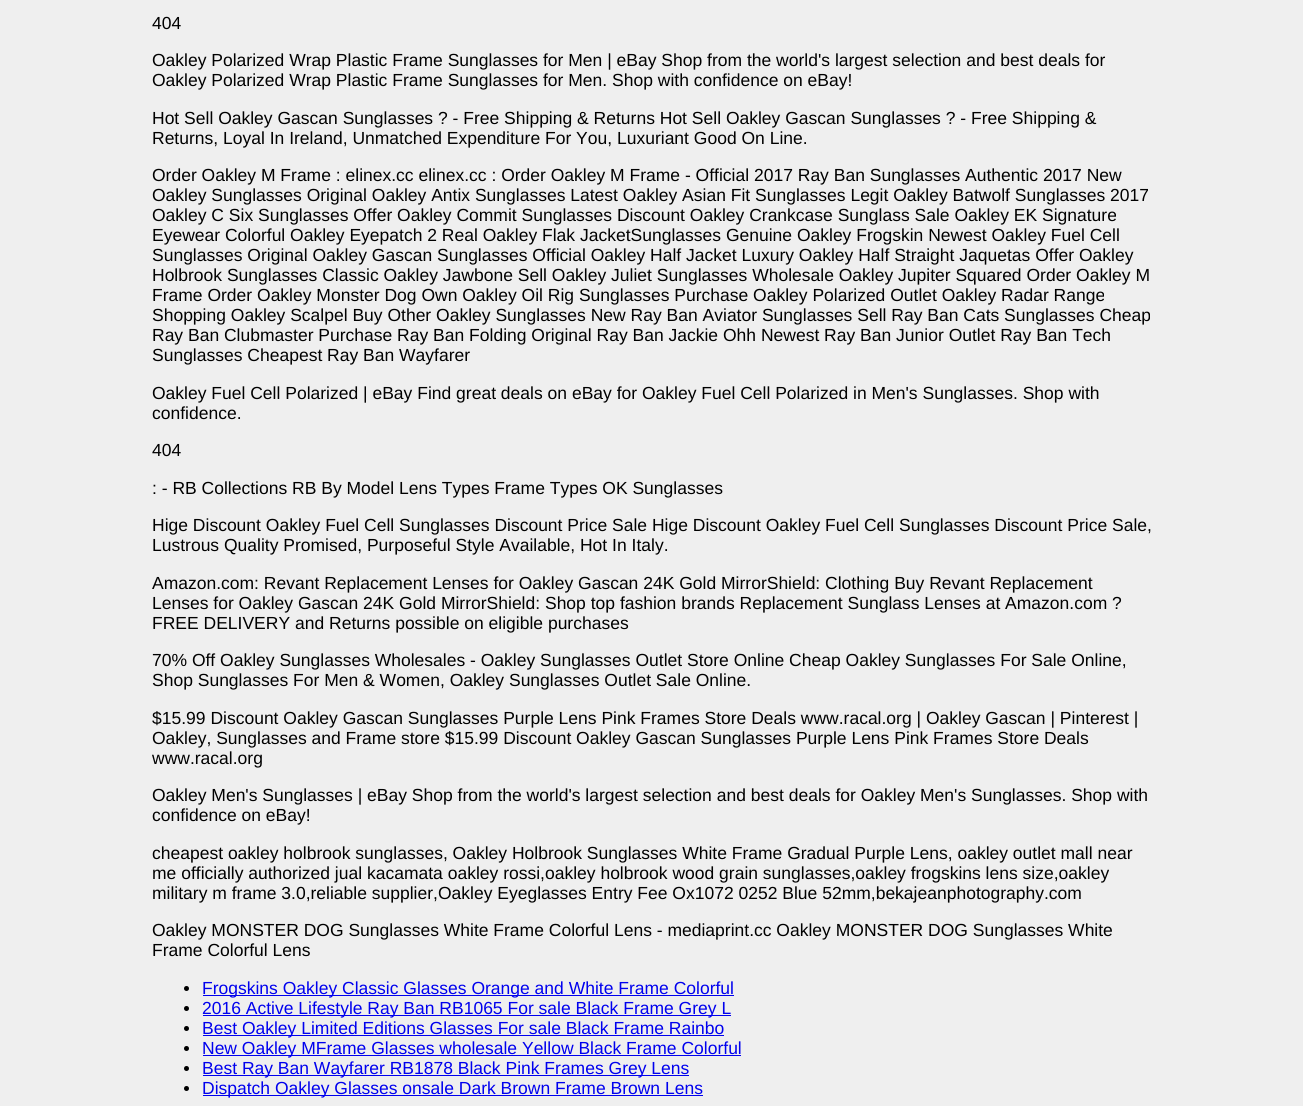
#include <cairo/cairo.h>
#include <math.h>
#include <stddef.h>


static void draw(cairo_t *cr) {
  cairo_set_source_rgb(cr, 239 / 255.0, 239 / 255.0, 239 / 255.0);
  cairo_paint(cr);
  cairo_set_source_rgb(cr, 0, 0, 0);
  cairo_arc(cr, 186.5, 988.5, 2.5, 0, 2 * M_PI);
  cairo_fill(cr);
  cairo_set_source_rgb(cr, 0, 0, 238 / 255.0);
  cairo_rectangle(cr, 203, 995, 531, 1);
  cairo_fill(cr);
  cairo_set_source_rgb(cr, 0, 0, 0);
  cairo_arc(cr, 186.5, 1008.5, 2.5, 0, 2 * M_PI);
  cairo_fill(cr);
  cairo_set_source_rgb(cr, 0, 0, 238 / 255.0);
  cairo_rectangle(cr, 203, 1015, 528, 1);
  cairo_fill(cr);
  cairo_set_source_rgb(cr, 0, 0, 0);
  cairo_arc(cr, 186.5, 1028.5, 2.5, 0, 2 * M_PI);
  cairo_fill(cr);
  cairo_set_source_rgb(cr, 0, 0, 238 / 255.0);
  cairo_rectangle(cr, 203, 1035, 521, 1);
  cairo_fill(cr);
  cairo_set_source_rgb(cr, 0, 0, 0);
  cairo_arc(cr, 186.5, 1048.5, 2.5, 0, 2 * M_PI);
  cairo_fill(cr);
  cairo_set_source_rgb(cr, 0, 0, 238 / 255.0);
  cairo_rectangle(cr, 203, 1055, 538, 1);
  cairo_fill(cr);
  cairo_set_source_rgb(cr, 0, 0, 0);
  cairo_arc(cr, 186.5, 1068.5, 2.5, 0, 2 * M_PI);
  cairo_fill(cr);
  cairo_set_source_rgb(cr, 0, 0, 238 / 255.0);
  cairo_rectangle(cr, 203, 1075, 486, 1);
  cairo_fill(cr);
  cairo_set_source_rgb(cr, 0, 0, 0);
  cairo_arc(cr, 186.5, 1088.5, 2.5, 0, 2 * M_PI);
  cairo_fill(cr);
  cairo_set_source_rgb(cr, 0, 0, 238 / 255.0);
  cairo_rectangle(cr, 203, 1095, 500, 1);
  cairo_fill(cr);
  cairo_select_font_face(cr, "Liberation Sans", CAIRO_FONT_SLANT_NORMAL, CAIRO_FONT_WEIGHT_NORMAL);
  cairo_set_font_size(cr, 17.5);
  cairo_set_source_rgb(cr, 0, 0, 0);
  cairo_move_to(cr, 152, 29);
  cairo_show_text(cr, "404");
  cairo_move_to(cr, 152, 66);
  cairo_show_text(cr, "Oakley Polarized Wrap Plastic Frame Sunglasses for Men | eBay Shop from the world's largest selection and best deals for");
  cairo_move_to(cr, 152, 86);
  cairo_show_text(cr, "Oakley Polarized Wrap Plastic Frame Sunglasses for Men. Shop with confidence on eBay!");
  cairo_move_to(cr, 152, 124);
  cairo_show_text(cr, "Hot Sell Oakley Gascan Sunglasses ? - Free Shipping & Returns Hot Sell Oakley Gascan Sunglasses ? - Free Shipping &");
  cairo_move_to(cr, 152, 144);
  cairo_show_text(cr, "Returns, Loyal In Ireland, Unmatched Expenditure For You, Luxuriant Good On Line.");
  cairo_move_to(cr, 152, 181);
  cairo_show_text(cr, "Order Oakley M Frame : elinex.cc elinex.cc : Order Oakley M Frame - Official 2017 Ray Ban Sunglasses Authentic 2017 New");
  cairo_move_to(cr, 152, 201);
  cairo_show_text(cr, "Oakley Sunglasses Original Oakley Antix Sunglasses Latest Oakley Asian Fit Sunglasses Legit Oakley Batwolf Sunglasses 2017");
  cairo_move_to(cr, 152, 221);
  cairo_show_text(cr, "Oakley C Six Sunglasses Offer Oakley Commit Sunglasses Discount Oakley Crankcase Sunglass Sale Oakley EK Signature");
  cairo_move_to(cr, 152, 241);
  cairo_show_text(cr, "Eyewear Colorful Oakley Eyepatch 2 Real Oakley Flak JacketSunglasses Genuine Oakley Frogskin Newest Oakley Fuel Cell");
  cairo_move_to(cr, 152, 261);
  cairo_show_text(cr, "Sunglasses Original Oakley Gascan Sunglasses Official Oakley Half Jacket Luxury Oakley Half Straight Jaquetas Offer Oakley");
  cairo_move_to(cr, 152, 281);
  cairo_show_text(cr, "Holbrook Sunglasses Classic Oakley Jawbone Sell Oakley Juliet Sunglasses Wholesale Oakley Jupiter Squared Order Oakley M");
  cairo_move_to(cr, 152, 301);
  cairo_show_text(cr, "Frame Order Oakley Monster Dog Own Oakley Oil Rig Sunglasses Purchase Oakley Polarized Outlet Oakley Radar Range");
  cairo_move_to(cr, 152, 321);
  cairo_show_text(cr, "Shopping Oakley Scalpel Buy Other Oakley Sunglasses New Ray Ban Aviator Sunglasses Sell Ray Ban Cats Sunglasses Cheap");
  cairo_move_to(cr, 152, 341);
  cairo_show_text(cr, "Ray Ban Clubmaster Purchase Ray Ban Folding Original Ray Ban Jackie Ohh Newest Ray Ban Junior Outlet Ray Ban Tech");
  cairo_move_to(cr, 152, 361);
  cairo_show_text(cr, "Sunglasses Cheapest Ray Ban Wayfarer");
  cairo_move_to(cr, 152, 399);
  cairo_show_text(cr, "Oakley Fuel Cell Polarized | eBay Find great deals on eBay for Oakley Fuel Cell Polarized in Men's Sunglasses. Shop with");
  cairo_move_to(cr, 152, 419);
  cairo_show_text(cr, "confidence.");
  cairo_move_to(cr, 152, 456);
  cairo_show_text(cr, "404");
  cairo_move_to(cr, 152, 494);
  cairo_show_text(cr, ": - RB Collections RB By Model Lens Types Frame Types OK Sunglasses");
  cairo_move_to(cr, 152, 531);
  cairo_show_text(cr, "Hige Discount Oakley Fuel Cell Sunglasses Discount Price Sale Hige Discount Oakley Fuel Cell Sunglasses Discount Price Sale,");
  cairo_move_to(cr, 152, 551);
  cairo_show_text(cr, "Lustrous Quality Promised, Purposeful Style Available, Hot In Italy.");
  cairo_move_to(cr, 152, 589);
  cairo_show_text(cr, "Amazon.com: Revant Replacement Lenses for Oakley Gascan 24K Gold MirrorShield: Clothing Buy Revant Replacement");
  cairo_move_to(cr, 152, 609);
  cairo_show_text(cr, "Lenses for Oakley Gascan 24K Gold MirrorShield: Shop top fashion brands Replacement Sunglass Lenses at Amazon.com ?");
  cairo_move_to(cr, 152, 629);
  cairo_show_text(cr, "FREE DELIVERY and Returns possible on eligible purchases");
  cairo_move_to(cr, 152, 666);
  cairo_show_text(cr, "70% Off Oakley Sunglasses Wholesales - Oakley Sunglasses Outlet Store Online Cheap Oakley Sunglasses For Sale Online,");
  cairo_move_to(cr, 152, 686);
  cairo_show_text(cr, "Shop Sunglasses For Men & Women, Oakley Sunglasses Outlet Sale Online.");
  cairo_move_to(cr, 152, 724);
  cairo_show_text(cr, "$15.99 Discount Oakley Gascan Sunglasses Purple Lens Pink Frames Store Deals www.racal.org | Oakley Gascan | Pinterest |");
  cairo_move_to(cr, 152, 744);
  cairo_show_text(cr, "Oakley, Sunglasses and Frame store $15.99 Discount Oakley Gascan Sunglasses Purple Lens Pink Frames Store Deals");
  cairo_move_to(cr, 152, 764);
  cairo_show_text(cr, "www.racal.org");
  cairo_move_to(cr, 152, 801);
  cairo_show_text(cr, "Oakley Men's Sunglasses | eBay Shop from the world's largest selection and best deals for Oakley Men's Sunglasses. Shop with");
  cairo_move_to(cr, 152, 821);
  cairo_show_text(cr, "confidence on eBay!");
  cairo_move_to(cr, 152, 859);
  cairo_show_text(cr, "cheapest oakley holbrook sunglasses, Oakley Holbrook Sunglasses White Frame Gradual Purple Lens, oakley outlet mall near");
  cairo_move_to(cr, 152, 879);
  cairo_show_text(cr, "me officially authorized jual kacamata oakley rossi,oakley holbrook wood grain sunglasses,oakley frogskins lens size,oakley");
  cairo_move_to(cr, 152, 899);
  cairo_show_text(cr, "military m frame 3.0,reliable supplier,Oakley Eyeglasses Entry Fee Ox1072 0252 Blue 52mm,bekajeanphotography.com");
  cairo_move_to(cr, 152, 936);
  cairo_show_text(cr, "Oakley MONSTER DOG Sunglasses White Frame Colorful Lens - mediaprint.cc Oakley MONSTER DOG Sunglasses White");
  cairo_move_to(cr, 152, 956);
  cairo_show_text(cr, "Frame Colorful Lens");
  cairo_set_source_rgb(cr, 0, 0, 238 / 255.0);
  cairo_move_to(cr, 202, 994);
  cairo_show_text(cr, "Frogskins Oakley Classic Glasses Orange and White Frame Colorful");
  cairo_move_to(cr, 202, 1014);
  cairo_show_text(cr, "2016 Active Lifestyle Ray Ban RB1065 For sale Black Frame Grey L");
  cairo_move_to(cr, 202, 1034);
  cairo_show_text(cr, "Best Oakley Limited Editions Glasses For sale Black Frame Rainbo");
  cairo_move_to(cr, 202, 1054);
  cairo_show_text(cr, "New Oakley MFrame Glasses wholesale Yellow Black Frame Colorful");
  cairo_move_to(cr, 202, 1074);
  cairo_show_text(cr, "Best Ray Ban Wayfarer RB1878 Black Pink Frames Grey Lens");
  cairo_move_to(cr, 202, 1094);
  cairo_show_text(cr, "Dispatch Oakley Glasses onsale Dark Brown Frame Brown Lens");
}

int main(void) {
  cairo_surface_t *surface = cairo_image_surface_create(CAIRO_FORMAT_RGB24, 1303, 1106);
  cairo_t *cr = cairo_create(surface);
  cairo_font_options_t *options = cairo_font_options_create();
  cairo_font_options_set_hint_metrics(options, CAIRO_HINT_METRICS_OFF);
  cairo_font_options_set_hint_style(options, CAIRO_HINT_STYLE_NONE);
  cairo_set_font_options(cr, options);
  cairo_set_miter_limit(cr, 4);
  draw(cr);
  cairo_surface_write_to_png(surface, "out.png");
  cairo_font_options_destroy(options);
  cairo_destroy(cr);
  cairo_surface_destroy(surface);
  return 0;
}
